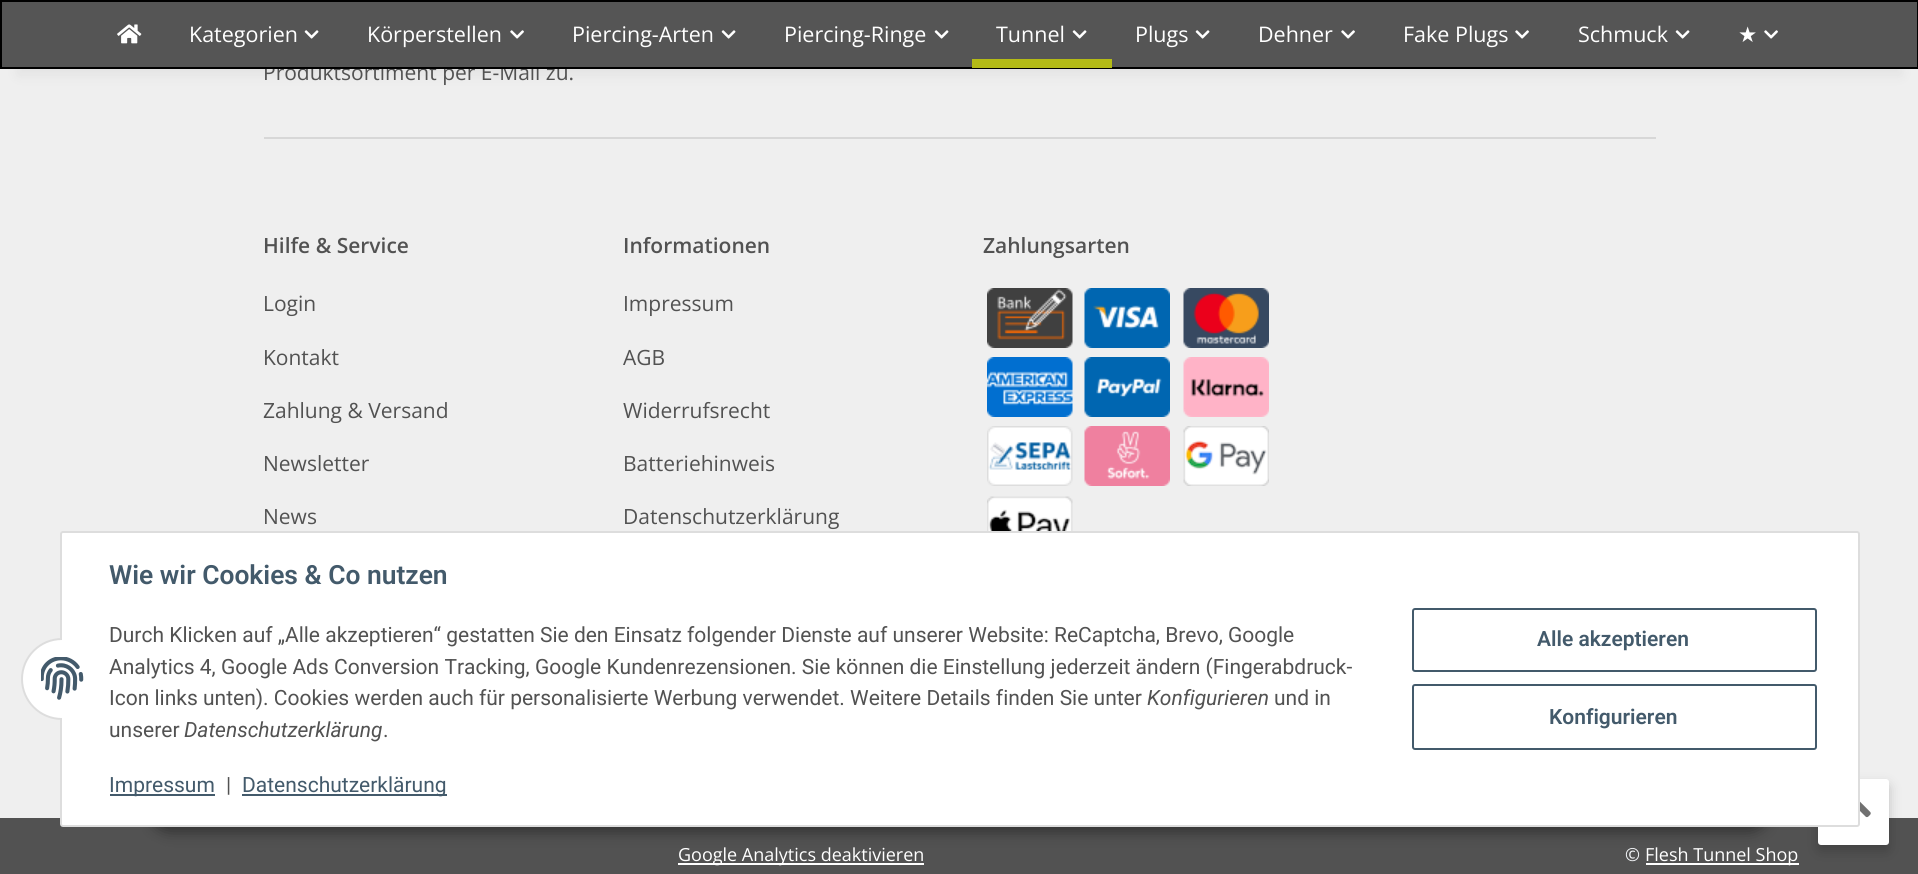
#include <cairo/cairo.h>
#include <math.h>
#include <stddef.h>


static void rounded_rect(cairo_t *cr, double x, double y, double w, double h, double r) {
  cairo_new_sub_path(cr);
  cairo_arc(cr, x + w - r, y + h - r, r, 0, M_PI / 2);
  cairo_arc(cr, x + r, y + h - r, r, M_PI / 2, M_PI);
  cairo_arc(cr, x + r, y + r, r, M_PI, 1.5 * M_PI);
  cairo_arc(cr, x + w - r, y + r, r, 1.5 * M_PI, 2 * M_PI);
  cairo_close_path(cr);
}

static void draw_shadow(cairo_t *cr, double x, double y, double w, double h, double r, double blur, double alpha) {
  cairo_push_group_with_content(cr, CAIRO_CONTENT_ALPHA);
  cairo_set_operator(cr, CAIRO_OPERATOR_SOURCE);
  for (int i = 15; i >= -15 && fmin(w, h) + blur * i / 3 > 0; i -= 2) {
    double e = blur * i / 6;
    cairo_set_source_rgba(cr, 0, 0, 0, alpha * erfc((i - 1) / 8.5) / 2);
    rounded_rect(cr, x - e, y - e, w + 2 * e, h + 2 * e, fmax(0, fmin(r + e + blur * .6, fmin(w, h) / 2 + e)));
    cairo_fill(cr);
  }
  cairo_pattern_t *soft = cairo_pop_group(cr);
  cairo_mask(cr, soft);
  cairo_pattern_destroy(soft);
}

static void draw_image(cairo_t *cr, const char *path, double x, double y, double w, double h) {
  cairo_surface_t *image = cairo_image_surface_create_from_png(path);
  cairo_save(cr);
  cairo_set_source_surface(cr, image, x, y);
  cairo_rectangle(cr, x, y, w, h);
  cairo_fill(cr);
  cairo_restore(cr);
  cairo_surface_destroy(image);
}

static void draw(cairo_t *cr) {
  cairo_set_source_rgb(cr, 239 / 255.0, 239 / 255.0, 239 / 255.0);
  cairo_paint(cr);
  cairo_set_source_rgb(cr, 0, 0, 0);
  draw_shadow(cr, 18, 42, 1883, 33, 0, 7, 0.06);
  cairo_set_source_rgb(cr, 215 / 255.0, 215 / 255.0, 215 / 255.0);
  cairo_rectangle(cr, 264, 137, 1392, 2);
  cairo_fill(cr);
  draw_image(cr, "images/4.png", 987, 288, 86, 60);
  draw_image(cr, "images/5.png", 1084, 288, 86, 60);
  draw_image(cr, "images/6.png", 1183, 288, 86, 60);
  draw_image(cr, "images/7.png", 987, 357, 86, 60);
  draw_image(cr, "images/8.png", 1084, 357, 86, 60);
  draw_image(cr, "images/9.png", 1183, 357, 86, 60);
  draw_image(cr, "images/10.png", 987, 426, 86, 60);
  draw_image(cr, "images/11.png", 1084, 426, 86, 60);
  draw_image(cr, "images/12.png", 1183, 426, 86, 60);
  draw_image(cr, "images/13.png", 987, 496, 86, 35);
  cairo_set_source_rgb(cr, 82 / 255.0, 82 / 255.0, 82 / 255.0);
  cairo_rectangle(cr, 0, 818, 1918, 56);
  cairo_fill(cr);
  cairo_set_source_rgb(cr, 1, 1, 1);
  cairo_rectangle(cr, 678, 863, 246, 2);
  cairo_fill(cr);
  cairo_rectangle(cr, 1646, 863, 153, 2);
  cairo_fill(cr);
  cairo_set_source_rgb(cr, 0, 0, 0);
  draw_shadow(cr, 1818, 785, 71, 66, 3, 6, 0.2);
  cairo_set_source_rgb(cr, 1, 1, 1);
  rounded_rect(cr, 1818, 779, 71, 66, 3);
  cairo_fill(cr);
  draw_image(cr, "images/14.png", 1860, 801, 11, 17);
  cairo_set_source_rgb(cr, 0, 0, 0);
  draw_shadow(cr, 150, 783, 1619, 48, 24, 7.5, 0.45);
  cairo_set_source_rgb(cr, 1, 1, 1);
  rounded_rect(cr, 61, 532, 1798, 294, 2);
  cairo_fill_preserve(cr);
  cairo_set_source_rgb(cr, 221 / 255.0, 221 / 255.0, 221 / 255.0);
  cairo_stroke(cr);
  cairo_set_source_rgb(cr, 1, 1, 1);
  rounded_rect(cr, 22, 639, 81, 80, 40);
  cairo_fill_preserve(cr);
  cairo_set_source_rgb(cr, 221 / 255.0, 221 / 255.0, 221 / 255.0);
  cairo_stroke(cr);
  cairo_set_source_rgb(cr, 1, 1, 1);
  cairo_rectangle(cr, 62, 638, 42, 82);
  cairo_fill(cr);
  draw_image(cr, "images/15.png", 41, 657, 43, 43);
  cairo_set_source_rgb(cr, 67 / 255.0, 90 / 255.0, 107 / 255.0);
  cairo_rectangle(cr, 110, 794, 105, 2);
  cairo_fill(cr);
  cairo_rectangle(cr, 242, 794, 205, 2);
  cairo_fill(cr);
  rounded_rect(cr, 1413, 609, 403, 62, 2);
  cairo_stroke(cr);
  rounded_rect(cr, 1413, 685, 403, 64, 2);
  cairo_stroke(cr);
  cairo_select_font_face(cr, "Open Sans", CAIRO_FONT_SLANT_NORMAL, CAIRO_FONT_WEIGHT_NORMAL);
  cairo_set_font_size(cr, 21);
  cairo_set_source_rgb(cr, 82 / 255.0, 82 / 255.0, 82 / 255.0);
  cairo_move_to(cr, 263, 80);
  cairo_show_text(cr, "Produktsortiment per E-Mail zu.");
  cairo_set_source_rgb(cr, 85 / 255.0, 85 / 255.0, 85 / 255.0);
  cairo_rectangle(cr, 1, 1, 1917, 67);
  cairo_fill_preserve(cr);
  cairo_set_source_rgb(cr, 0, 0, 0);
  cairo_stroke(cr);
  draw_image(cr, "images/3.png", 1764, 30, 14, 9);
  cairo_select_font_face(cr, "DejaVu Sans", CAIRO_FONT_SLANT_NORMAL, CAIRO_FONT_WEIGHT_NORMAL);
  cairo_set_font_size(cr, 21.5);
  cairo_set_source_rgb(cr, 1, 1, 1);
  cairo_move_to(cr, 1738, 42);
  cairo_show_text(cr, "★");
  draw_image(cr, "images/2.png", 1675, 30, 15, 9);
  cairo_select_font_face(cr, "Open Sans", CAIRO_FONT_SLANT_NORMAL, CAIRO_FONT_WEIGHT_NORMAL);
  cairo_move_to(cr, 1578, 42);
  cairo_show_text(cr, "Schmuck");
  draw_image(cr, "images/3.png", 1515, 30, 14, 9);
  cairo_move_to(cr, 1403, 42);
  cairo_show_text(cr, "Fake Plugs");
  draw_image(cr, "images/3.png", 1341, 30, 14, 9);
  cairo_move_to(cr, 1258, 42);
  cairo_show_text(cr, "Dehner");
  draw_image(cr, "images/2.png", 1195, 30, 15, 9);
  cairo_move_to(cr, 1135, 42);
  cairo_show_text(cr, "Plugs");
  draw_image(cr, "images/2.png", 1072, 30, 15, 9);
  cairo_set_source_rgb(cr, 180 / 255.0, 187 / 255.0, 22 / 255.0);
  cairo_rectangle(cr, 972, 59, 140, 9);
  cairo_fill(cr);
  cairo_set_source_rgb(cr, 1, 1, 1);
  cairo_move_to(cr, 996, 42);
  cairo_show_text(cr, "Tunnel");
  draw_image(cr, "images/2.png", 934, 30, 15, 9);
  cairo_move_to(cr, 784, 42);
  cairo_show_text(cr, "Piercing-Ringe");
  draw_image(cr, "images/2.png", 721, 30, 15, 9);
  cairo_move_to(cr, 572, 42);
  cairo_show_text(cr, "Piercing-Arten");
  draw_image(cr, "images/3.png", 510, 30, 14, 9);
  cairo_move_to(cr, 367, 42);
  cairo_show_text(cr, "Körperstellen");
  draw_image(cr, "images/2.png", 304, 30, 15, 9);
  cairo_move_to(cr, 189, 42);
  cairo_show_text(cr, "Kategorien");
  draw_image(cr, "images/1.png", 117, 24, 25, 20);
  cairo_select_font_face(cr, "Open Sans SemiBold", CAIRO_FONT_SLANT_NORMAL, CAIRO_FONT_WEIGHT_NORMAL);
  cairo_set_font_size(cr, 21);
  cairo_set_source_rgb(cr, 82 / 255.0, 82 / 255.0, 82 / 255.0);
  cairo_move_to(cr, 263, 253);
  cairo_show_text(cr, "Hilfe & Service");
  cairo_select_font_face(cr, "Open Sans", CAIRO_FONT_SLANT_NORMAL, CAIRO_FONT_WEIGHT_NORMAL);
  cairo_move_to(cr, 263, 311);
  cairo_show_text(cr, "Login");
  cairo_move_to(cr, 263, 365);
  cairo_show_text(cr, "Kontakt");
  cairo_move_to(cr, 263, 418);
  cairo_show_text(cr, "Zahlung & Versand");
  cairo_move_to(cr, 263, 471);
  cairo_show_text(cr, "Newsletter");
  cairo_move_to(cr, 263, 524);
  cairo_show_text(cr, "News");
  cairo_select_font_face(cr, "Open Sans SemiBold", CAIRO_FONT_SLANT_NORMAL, CAIRO_FONT_WEIGHT_NORMAL);
  cairo_move_to(cr, 623, 253);
  cairo_show_text(cr, "Informationen");
  cairo_select_font_face(cr, "Open Sans", CAIRO_FONT_SLANT_NORMAL, CAIRO_FONT_WEIGHT_NORMAL);
  cairo_move_to(cr, 623, 311);
  cairo_show_text(cr, "Impressum");
  cairo_move_to(cr, 623, 365);
  cairo_show_text(cr, "AGB");
  cairo_move_to(cr, 623, 418);
  cairo_show_text(cr, "Widerrufsrecht");
  cairo_move_to(cr, 623, 471);
  cairo_show_text(cr, "Batteriehinweis");
  cairo_move_to(cr, 623, 524);
  cairo_show_text(cr, "Datenschutzerklärung");
  cairo_select_font_face(cr, "Open Sans SemiBold", CAIRO_FONT_SLANT_NORMAL, CAIRO_FONT_WEIGHT_NORMAL);
  cairo_move_to(cr, 983, 253);
  cairo_show_text(cr, "Zahlungsarten");
  cairo_select_font_face(cr, "Open Sans", CAIRO_FONT_SLANT_NORMAL, CAIRO_FONT_WEIGHT_NORMAL);
  cairo_set_font_size(cr, 18);
  cairo_set_source_rgb(cr, 1, 1, 1);
  cairo_move_to(cr, 678, 861);
  cairo_show_text(cr, "Google Analytics deaktivieren");
  cairo_set_source_rgb(cr, 245 / 255.0, 247 / 255.0, 250 / 255.0);
  cairo_move_to(cr, 1625, 861);
  cairo_show_text(cr, "©");
  cairo_set_source_rgb(cr, 1, 1, 1);
  cairo_move_to(cr, 1645, 861);
  cairo_show_text(cr, "Flesh Tunnel Shop");
  cairo_select_font_face(cr, "Roboto SemiBold", CAIRO_FONT_SLANT_NORMAL, CAIRO_FONT_WEIGHT_NORMAL);
  cairo_set_font_size(cr, 26.4);
  cairo_set_source_rgb(cr, 67 / 255.0, 90 / 255.0, 107 / 255.0);
  cairo_move_to(cr, 109, 584);
  cairo_show_text(cr, "Wie wir Cookies & Co nutzen");
  cairo_select_font_face(cr, "Roboto", CAIRO_FONT_SLANT_NORMAL, CAIRO_FONT_WEIGHT_NORMAL);
  cairo_set_font_size(cr, 21);
  cairo_set_source_rgb(cr, 82 / 255.0, 82 / 255.0, 82 / 255.0);
  cairo_move_to(cr, 109, 642);
  cairo_show_text(cr, "Durch Klicken auf „Alle akzeptieren“ gestatten Sie den Einsatz folgender Dienste auf unserer Website: ReCaptcha, Brevo, Google");
  cairo_move_to(cr, 109, 674);
  cairo_show_text(cr, "Analytics 4, Google Ads Conversion Tracking, Google Kundenrezensionen. Sie können die Einstellung jederzeit ändern (Fingerabdruck-");
  cairo_move_to(cr, 109, 705);
  cairo_show_text(cr, "Icon links unten). Cookies werden auch für personalisierte Werbung verwendet. Weitere Details finden Sie unter");
  cairo_select_font_face(cr, "Roboto", CAIRO_FONT_SLANT_ITALIC, CAIRO_FONT_WEIGHT_NORMAL);
  cairo_move_to(cr, 1147, 705);
  cairo_show_text(cr, "Konfigurieren");
  cairo_select_font_face(cr, "Roboto", CAIRO_FONT_SLANT_NORMAL, CAIRO_FONT_WEIGHT_NORMAL);
  cairo_move_to(cr, 1274, 705);
  cairo_show_text(cr, "und in");
  cairo_move_to(cr, 109, 737);
  cairo_show_text(cr, "unserer");
  cairo_select_font_face(cr, "Roboto", CAIRO_FONT_SLANT_ITALIC, CAIRO_FONT_WEIGHT_NORMAL);
  cairo_move_to(cr, 184, 737);
  cairo_show_text(cr, "Datenschutzerklärung");
  cairo_select_font_face(cr, "Roboto", CAIRO_FONT_SLANT_NORMAL, CAIRO_FONT_WEIGHT_NORMAL);
  cairo_move_to(cr, 383, 737);
  cairo_show_text(cr, ".");
  cairo_set_source_rgb(cr, 67 / 255.0, 90 / 255.0, 107 / 255.0);
  cairo_move_to(cr, 109, 792);
  cairo_show_text(cr, "Impressum");
  cairo_set_source_rgb(cr, 82 / 255.0, 82 / 255.0, 82 / 255.0);
  cairo_move_to(cr, 226, 792);
  cairo_show_text(cr, "|");
  cairo_set_source_rgb(cr, 67 / 255.0, 90 / 255.0, 107 / 255.0);
  cairo_move_to(cr, 242, 792);
  cairo_show_text(cr, "Datenschutzerklärung");
  cairo_select_font_face(cr, "Roboto SemiBold", CAIRO_FONT_SLANT_NORMAL, CAIRO_FONT_WEIGHT_NORMAL);
  cairo_move_to(cr, 1537, 646);
  cairo_show_text(cr, "Alle akzeptieren");
  cairo_move_to(cr, 1549, 724);
  cairo_show_text(cr, "Konfigurieren");
}

int main(void) {
  cairo_surface_t *surface = cairo_image_surface_create(CAIRO_FORMAT_RGB24, 1918, 874);
  cairo_t *cr = cairo_create(surface);
  cairo_font_options_t *options = cairo_font_options_create();
  cairo_font_options_set_hint_metrics(options, CAIRO_HINT_METRICS_OFF);
  cairo_font_options_set_hint_style(options, CAIRO_HINT_STYLE_NONE);
  cairo_set_font_options(cr, options);
  cairo_set_miter_limit(cr, 4);
  draw(cr);
  cairo_surface_write_to_png(surface, "out.png");
  cairo_font_options_destroy(options);
  cairo_destroy(cr);
  cairo_surface_destroy(surface);
  return 0;
}
